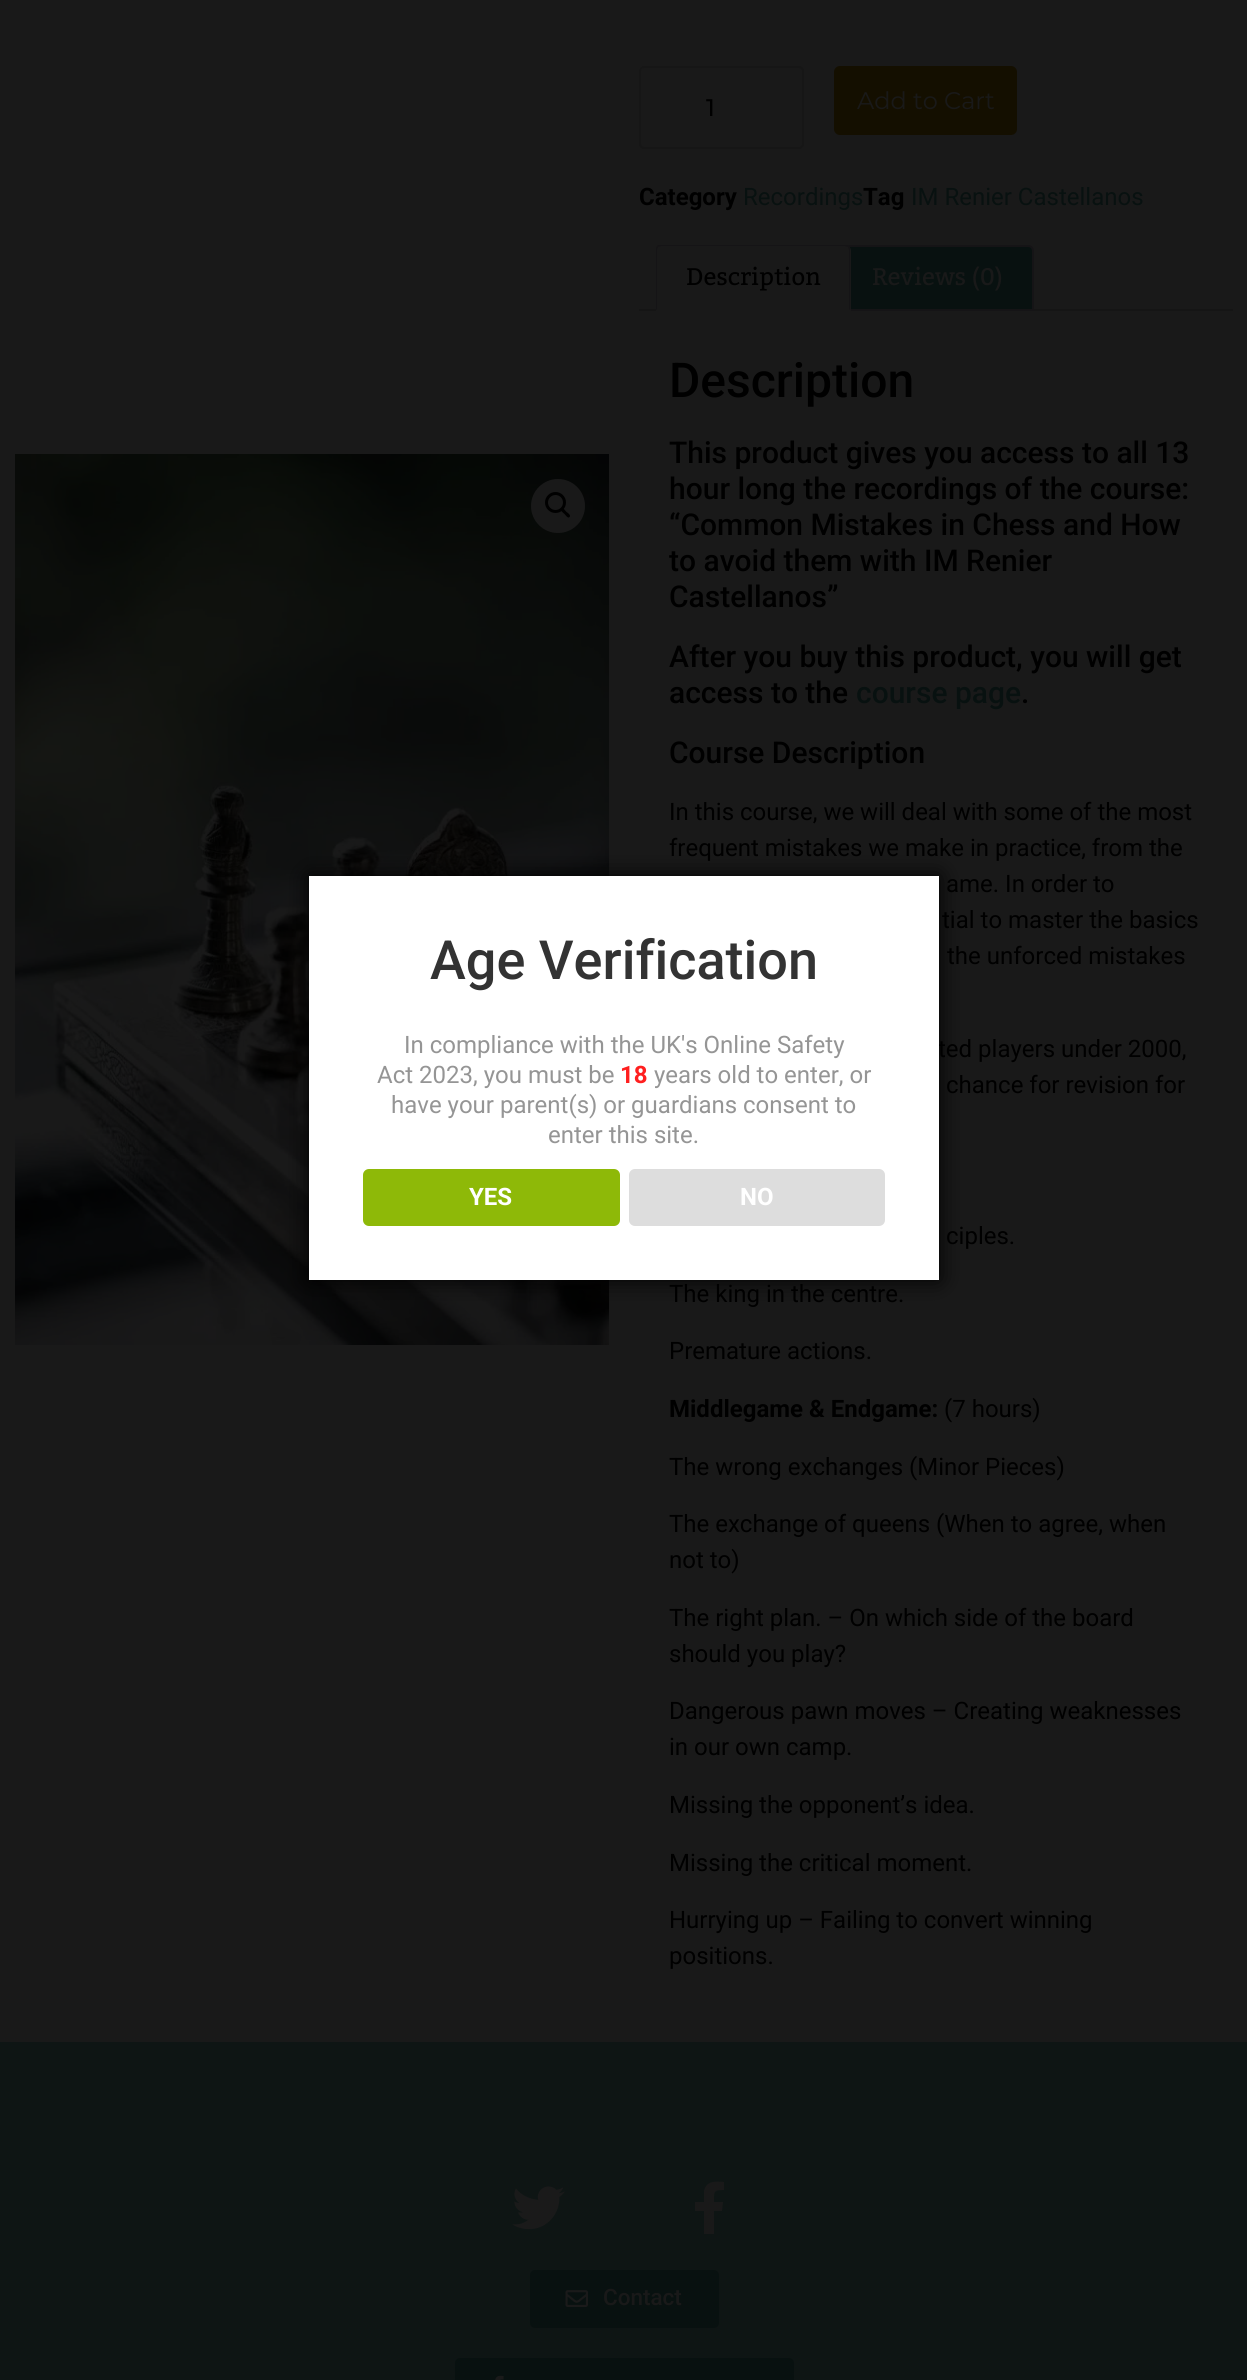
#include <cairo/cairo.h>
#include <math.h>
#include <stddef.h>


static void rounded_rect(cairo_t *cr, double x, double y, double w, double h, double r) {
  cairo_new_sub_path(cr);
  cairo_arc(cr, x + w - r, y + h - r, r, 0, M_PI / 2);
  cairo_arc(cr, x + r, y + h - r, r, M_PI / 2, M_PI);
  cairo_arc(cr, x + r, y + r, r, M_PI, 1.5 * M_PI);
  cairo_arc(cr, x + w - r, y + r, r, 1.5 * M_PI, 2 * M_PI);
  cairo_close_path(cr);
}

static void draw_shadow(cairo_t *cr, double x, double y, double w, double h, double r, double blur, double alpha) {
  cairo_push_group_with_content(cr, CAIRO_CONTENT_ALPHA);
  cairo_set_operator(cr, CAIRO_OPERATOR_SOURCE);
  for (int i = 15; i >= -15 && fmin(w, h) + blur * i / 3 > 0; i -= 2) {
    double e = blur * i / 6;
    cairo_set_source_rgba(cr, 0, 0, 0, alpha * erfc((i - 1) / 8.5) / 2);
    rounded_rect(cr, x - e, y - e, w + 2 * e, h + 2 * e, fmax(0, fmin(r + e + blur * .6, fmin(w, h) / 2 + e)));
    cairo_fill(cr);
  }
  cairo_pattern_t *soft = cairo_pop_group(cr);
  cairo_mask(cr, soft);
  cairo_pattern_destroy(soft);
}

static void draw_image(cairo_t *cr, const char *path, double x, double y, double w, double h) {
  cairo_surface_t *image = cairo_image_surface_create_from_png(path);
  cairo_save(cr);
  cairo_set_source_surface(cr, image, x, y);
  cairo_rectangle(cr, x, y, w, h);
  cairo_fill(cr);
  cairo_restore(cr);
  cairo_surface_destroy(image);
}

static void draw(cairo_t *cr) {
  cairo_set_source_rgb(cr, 25 / 255.0, 25 / 255.0, 25 / 255.0);
  cairo_paint(cr);
  draw_image(cr, "images/1.png", 15, 454, 594, 891);
  cairo_set_source_rgb(cr, 0, 0, 0);
  draw_shadow(cr, 309, 876, 630, 404, 0, 11, 1);
  cairo_set_source_rgb(cr, 25 / 255.0, 25 / 255.0, 25 / 255.0);
  cairo_arc(cr, 558, 506, 27, 0, 2 * M_PI);
  cairo_fill(cr);
  cairo_arc(cr, 555.5, 502.5, 9, 0, 2 * M_PI);
  cairo_set_source_rgb(cr, 0, 0, 0);
  cairo_set_line_width(cr, 3);
  cairo_stroke(cr);
  cairo_new_path(cr);
  cairo_move_to(cr, 561.5, 508.5);
  cairo_curve_to(cr, 563, 507, 565.5, 511, 566.5, 512);
  cairo_curve_to(cr, 567.5, 512.5, 571.5, 515.5, 569.5, 517);
  cairo_curve_to(cr, 568, 519, 565.5, 515, 564.5, 514);
  cairo_curve_to(cr, 563.5, 513, 559.5, 510.5, 561.5, 508.5);
  cairo_close_path(cr);
  cairo_fill(cr);
  rounded_rect(cr, 640, 67, 163, 81, 4);
  cairo_set_source_rgb(cr, 22 / 255.0, 22 / 255.0, 22 / 255.0);
  cairo_set_line_width(cr, 2);
  cairo_stroke(cr);
  cairo_set_source_rgb(cr, 20 / 255.0, 15 / 255.0, 0);
  rounded_rect(cr, 834, 66, 183, 69, 6);
  cairo_fill(cr);
  cairo_set_source_rgb(cr, 21 / 255.0, 21 / 255.0, 21 / 255.0);
  cairo_rectangle(cr, 639, 309, 594, 2);
  cairo_fill(cr);
  cairo_set_source_rgb(cr, 8 / 255.0, 17 / 255.0, 16 / 255.0);
  cairo_new_path(cr);
  cairo_move_to(cr, 848, 246);
  cairo_line_to(cr, 1028, 246);
  cairo_curve_to(cr, 1031, 246, 1033, 248, 1033, 251);
  cairo_line_to(cr, 1033, 310);
  cairo_line_to(cr, 843, 310);
  cairo_line_to(cr, 843, 251);
  cairo_curve_to(cr, 843, 248, 845, 246, 848, 246);
  cairo_close_path(cr);
  cairo_fill_preserve(cr);
  cairo_set_source_rgb(cr, 21 / 255.0, 20 / 255.0, 22 / 255.0);
  cairo_stroke(cr);
  cairo_set_source_rgb(cr, 25 / 255.0, 25 / 255.0, 25 / 255.0);
  cairo_new_path(cr);
  cairo_move_to(cr, 662, 245);
  cairo_line_to(cr, 845, 245);
  cairo_curve_to(cr, 848.5, 245, 851, 247.5, 851, 251);
  cairo_line_to(cr, 851, 311);
  cairo_line_to(cr, 656, 311);
  cairo_line_to(cr, 656, 251);
  cairo_curve_to(cr, 656, 247.5, 658.5, 245, 662, 245);
  cairo_close_path(cr);
  cairo_fill(cr);
  cairo_save(cr);
  cairo_rectangle(cr, 639, 245, 594, 66);
  cairo_clip(cr);
  cairo_set_source_rgb(cr, 21 / 255.0, 20 / 255.0, 22 / 255.0);
  cairo_new_path(cr);
  cairo_move_to(cr, 662, 246);
  cairo_curve_to(cr, 660, 246, 659, 247, 658, 247);
  cairo_line_to(cr, 657, 246);
  cairo_line_to(cr, 659, 244);
  cairo_line_to(cr, 847, 244);
  cairo_line_to(cr, 849, 246);
  cairo_line_to(cr, 848, 247);
  cairo_curve_to(cr, 847, 247, 846, 246, 844, 246);
  cairo_close_path(cr);
  cairo_fill(cr);
  cairo_restore(cr);
  cairo_set_source_rgb(cr, 21 / 255.0, 20 / 255.0, 22 / 255.0);
  cairo_new_path(cr);
  cairo_move_to(cr, 849, 246);
  cairo_curve_to(cr, 850, 247, 850, 249, 850, 250);
  cairo_line_to(cr, 850, 310);
  cairo_line_to(cr, 849, 309);
  cairo_line_to(cr, 849, 250);
  cairo_line_to(cr, 848, 247);
  cairo_close_path(cr);
  cairo_fill(cr);
  cairo_new_path(cr);
  cairo_move_to(cr, 656, 310);
  cairo_line_to(cr, 657, 309);
  cairo_line_to(cr, 657, 250);
  cairo_line_to(cr, 658, 247);
  cairo_line_to(cr, 657, 246);
  cairo_curve_to(cr, 656, 247, 656, 249, 656, 250);
  cairo_close_path(cr);
  cairo_fill(cr);
  cairo_set_source_rgb(cr, 14 / 255.0, 21 / 255.0, 20 / 255.0);
  cairo_rectangle(cr, 0, 2042, 1247, 338);
  cairo_fill(cr);
  draw_image(cr, "images/2.png", 512, 2186, 53, 44);
  cairo_set_source_rgb(cr, 25 / 255.0, 25 / 255.0, 25 / 255.0);
  cairo_new_path(cr);
  cairo_move_to(cr, 722, 2211);
  cairo_line_to(cr, 714, 2211);
  cairo_line_to(cr, 714, 2234);
  cairo_line_to(cr, 704, 2234);
  cairo_line_to(cr, 704, 2211);
  cairo_line_to(cr, 695, 2211);
  cairo_line_to(cr, 695, 2202);
  cairo_line_to(cr, 704, 2202);
  cairo_line_to(cr, 704, 2191);
  cairo_curve_to(cr, 706, 2181, 715, 2181, 724, 2182);
  cairo_line_to(cr, 724, 2190);
  cairo_curve_to(cr, 713, 2190, 714, 2192, 714, 2202);
  cairo_line_to(cr, 723, 2202);
  cairo_close_path(cr);
  cairo_fill(cr);
  cairo_set_source_rgb(cr, 8 / 255.0, 17 / 255.0, 16 / 255.0);
  rounded_rect(cr, 530, 2270, 189, 58, 5);
  cairo_fill(cr);
  draw_image(cr, "images/3.png", 565, 2290, 23, 17);
  rounded_rect(cr, 455, 2358, 339, 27, 5);
  cairo_fill(cr);
  draw_image(cr, "images/4.png", 495, 2375, 9, 5);
  cairo_select_font_face(cr, "Montserrat Medium", CAIRO_FONT_SLANT_NORMAL, CAIRO_FONT_WEIGHT_NORMAL);
  cairo_set_font_size(cr, 24);
  cairo_set_source_rgb(cr, 0, 0, 0);
  cairo_move_to(cr, 706, 116);
  cairo_show_text(cr, "1");
  cairo_select_font_face(cr, "Montserrat", CAIRO_FONT_SLANT_NORMAL, CAIRO_FONT_WEIGHT_NORMAL);
  cairo_set_source_rgb(cr, 25 / 255.0, 25 / 255.0, 25 / 255.0);
  cairo_move_to(cr, 857, 109);
  cairo_show_text(cr, "Add to Cart");
  cairo_select_font_face(cr, "Roboto", CAIRO_FONT_SLANT_NORMAL, CAIRO_FONT_WEIGHT_BOLD);
  cairo_set_source_rgb(cr, 0, 0, 0);
  cairo_move_to(cr, 639, 205);
  cairo_show_text(cr, "Category");
  cairo_select_font_face(cr, "Roboto", CAIRO_FONT_SLANT_NORMAL, CAIRO_FONT_WEIGHT_NORMAL);
  cairo_set_source_rgb(cr, 8 / 255.0, 17 / 255.0, 16 / 255.0);
  cairo_move_to(cr, 743, 205);
  cairo_show_text(cr, "Recordings");
  cairo_select_font_face(cr, "Roboto", CAIRO_FONT_SLANT_NORMAL, CAIRO_FONT_WEIGHT_BOLD);
  cairo_set_source_rgb(cr, 0, 0, 0);
  cairo_move_to(cr, 863, 205);
  cairo_show_text(cr, "Tag");
  cairo_select_font_face(cr, "Roboto", CAIRO_FONT_SLANT_NORMAL, CAIRO_FONT_WEIGHT_NORMAL);
  cairo_set_source_rgb(cr, 8 / 255.0, 17 / 255.0, 16 / 255.0);
  cairo_move_to(cr, 911, 205);
  cairo_show_text(cr, "IM Renier Castellanos");
  cairo_select_font_face(cr, "Kadwa", CAIRO_FONT_SLANT_NORMAL, CAIRO_FONT_WEIGHT_NORMAL);
  cairo_set_source_rgb(cr, 0, 0, 0);
  cairo_move_to(cr, 686, 285);
  cairo_show_text(cr, "Description");
  cairo_set_source_rgb(cr, 25 / 255.0, 25 / 255.0, 25 / 255.0);
  cairo_move_to(cr, 872, 285);
  cairo_show_text(cr, "Reviews (0)");
  cairo_select_font_face(cr, "Roboto Medium", CAIRO_FONT_SLANT_NORMAL, CAIRO_FONT_WEIGHT_NORMAL);
  cairo_set_font_size(cr, 48);
  cairo_set_source_rgb(cr, 0, 0, 0);
  cairo_move_to(cr, 669, 397);
  cairo_show_text(cr, "Description");
  cairo_set_font_size(cr, 30);
  cairo_move_to(cr, 669, 463);
  cairo_show_text(cr, "This product gives you access to all 13");
  cairo_move_to(cr, 669, 499);
  cairo_show_text(cr, "hour long the recordings of the course:");
  cairo_move_to(cr, 669, 535);
  cairo_show_text(cr, "“Common Mistakes in Chess and How");
  cairo_move_to(cr, 669, 571);
  cairo_show_text(cr, "to avoid them with IM Renier");
  cairo_move_to(cr, 669, 607);
  cairo_show_text(cr, "Castellanos”");
  cairo_move_to(cr, 669, 667);
  cairo_show_text(cr, "After you buy this product, you will get");
  cairo_move_to(cr, 669, 703);
  cairo_show_text(cr, "access to the");
  cairo_set_source_rgb(cr, 8 / 255.0, 17 / 255.0, 16 / 255.0);
  cairo_move_to(cr, 856, 703);
  cairo_show_text(cr, "course page");
  cairo_set_source_rgb(cr, 0, 0, 0);
  cairo_move_to(cr, 1021, 703);
  cairo_show_text(cr, ".");
  cairo_move_to(cr, 669, 763);
  cairo_show_text(cr, "Course Description");
  cairo_select_font_face(cr, "Roboto", CAIRO_FONT_SLANT_NORMAL, CAIRO_FONT_WEIGHT_NORMAL);
  cairo_set_font_size(cr, 24);
  cairo_move_to(cr, 669, 820);
  cairo_show_text(cr, "In this course, we will deal with some of the most");
  cairo_move_to(cr, 669, 856);
  cairo_show_text(cr, "frequent mistakes we make in practice, from the");
  cairo_move_to(cr, 946, 892);
  cairo_show_text(cr, "ame. In order to");
  cairo_move_to(cr, 942, 928);
  cairo_show_text(cr, "tial to master the basics");
  cairo_move_to(cr, 947, 964);
  cairo_show_text(cr, "the unforced mistakes");
  cairo_move_to(cr, 938, 1057);
  cairo_show_text(cr, "ted players under 2000,");
  cairo_set_source_rgb(cr, 1, 1, 1);
  cairo_rectangle(cr, 309, 876, 630, 404);
  cairo_fill(cr);
  cairo_set_source_rgb(cr, 221 / 255.0, 221 / 255.0, 221 / 255.0);
  rounded_rect(cr, 629, 1169, 256, 57, 6);
  cairo_fill(cr);
  cairo_select_font_face(cr, "Roboto", CAIRO_FONT_SLANT_NORMAL, CAIRO_FONT_WEIGHT_BOLD);
  cairo_set_source_rgb(cr, 1, 1, 1);
  cairo_move_to(cr, 740, 1205);
  cairo_show_text(cr, "NO");
  cairo_set_source_rgb(cr, 142 / 255.0, 185 / 255.0, 8 / 255.0);
  rounded_rect(cr, 363, 1169, 257, 57, 6);
  cairo_fill(cr);
  cairo_set_source_rgb(cr, 1, 1, 1);
  cairo_move_to(cr, 469, 1205);
  cairo_show_text(cr, "YES");
  cairo_select_font_face(cr, "Roboto", CAIRO_FONT_SLANT_NORMAL, CAIRO_FONT_WEIGHT_NORMAL);
  cairo_set_source_rgb(cr, 149 / 255.0, 149 / 255.0, 149 / 255.0);
  cairo_move_to(cr, 548, 1143);
  cairo_show_text(cr, "enter this site.");
  cairo_move_to(cr, 391, 1113);
  cairo_show_text(cr, "have your parent(s) or guardians consent to");
  cairo_move_to(cr, 654, 1083);
  cairo_show_text(cr, "years old to enter, or");
  cairo_select_font_face(cr, "Roboto", CAIRO_FONT_SLANT_NORMAL, CAIRO_FONT_WEIGHT_BOLD);
  cairo_set_source_rgb(cr, 1, 31 / 255.0, 31 / 255.0);
  cairo_move_to(cr, 620, 1083);
  cairo_show_text(cr, "18");
  cairo_select_font_face(cr, "Roboto", CAIRO_FONT_SLANT_NORMAL, CAIRO_FONT_WEIGHT_NORMAL);
  cairo_set_source_rgb(cr, 149 / 255.0, 149 / 255.0, 149 / 255.0);
  cairo_move_to(cr, 377, 1083);
  cairo_show_text(cr, "Act 2023, you must be");
  cairo_move_to(cr, 404, 1053);
  cairo_show_text(cr, "In compliance with the UK's Online Safety");
  cairo_select_font_face(cr, "Roboto Medium", CAIRO_FONT_SLANT_NORMAL, CAIRO_FONT_WEIGHT_NORMAL);
  cairo_set_font_size(cr, 54);
  cairo_set_source_rgb(cr, 51 / 255.0, 51 / 255.0, 51 / 255.0);
  cairo_move_to(cr, 430, 979);
  cairo_show_text(cr, "Age Verification");
  cairo_select_font_face(cr, "Roboto", CAIRO_FONT_SLANT_NORMAL, CAIRO_FONT_WEIGHT_NORMAL);
  cairo_set_font_size(cr, 24);
  cairo_set_source_rgb(cr, 0, 0, 0);
  cairo_move_to(cr, 946, 1093);
  cairo_show_text(cr, "chance for revision for");
  cairo_move_to(cr, 946, 1244);
  cairo_show_text(cr, "ciples.");
  cairo_move_to(cr, 669, 1302);
  cairo_show_text(cr, "The king in the centre.");
  cairo_move_to(cr, 669, 1359);
  cairo_show_text(cr, "Premature actions.");
  cairo_select_font_face(cr, "Roboto", CAIRO_FONT_SLANT_NORMAL, CAIRO_FONT_WEIGHT_BOLD);
  cairo_move_to(cr, 669, 1417);
  cairo_show_text(cr, "Middlegame & Endgame:");
  cairo_select_font_face(cr, "Roboto", CAIRO_FONT_SLANT_NORMAL, CAIRO_FONT_WEIGHT_NORMAL);
  cairo_move_to(cr, 944, 1417);
  cairo_show_text(cr, "(7 hours)");
  cairo_move_to(cr, 669, 1475);
  cairo_show_text(cr, "The wrong exchanges (Minor Pieces)");
  cairo_move_to(cr, 669, 1532);
  cairo_show_text(cr, "The exchange of queens (When to agree, when");
  cairo_move_to(cr, 669, 1568);
  cairo_show_text(cr, "not to)");
  cairo_move_to(cr, 669, 1626);
  cairo_show_text(cr, "The right plan. – On which side of the board");
  cairo_move_to(cr, 669, 1662);
  cairo_show_text(cr, "should you play?");
  cairo_move_to(cr, 669, 1719);
  cairo_show_text(cr, "Dangerous pawn moves – Creating weaknesses");
  cairo_move_to(cr, 669, 1755);
  cairo_show_text(cr, "in our own camp.");
  cairo_move_to(cr, 669, 1813);
  cairo_show_text(cr, "Missing the opponent’s idea.");
  cairo_move_to(cr, 669, 1871);
  cairo_show_text(cr, "Missing the critical moment.");
  cairo_move_to(cr, 669, 1928);
  cairo_show_text(cr, "Hurrying up – Failing to convert winning");
  cairo_move_to(cr, 669, 1964);
  cairo_show_text(cr, "positions.");
  cairo_select_font_face(cr, "Roboto Medium", CAIRO_FONT_SLANT_NORMAL, CAIRO_FONT_WEIGHT_NORMAL);
  cairo_set_font_size(cr, 22.5);
  cairo_set_source_rgb(cr, 25 / 255.0, 25 / 255.0, 25 / 255.0);
  cairo_move_to(cr, 603, 2305);
  cairo_show_text(cr, "Contact");
}

int main(void) {
  cairo_surface_t *surface = cairo_image_surface_create(CAIRO_FORMAT_RGB24, 1247, 2380);
  cairo_t *cr = cairo_create(surface);
  cairo_font_options_t *options = cairo_font_options_create();
  cairo_font_options_set_hint_metrics(options, CAIRO_HINT_METRICS_OFF);
  cairo_font_options_set_hint_style(options, CAIRO_HINT_STYLE_NONE);
  cairo_set_font_options(cr, options);
  cairo_set_miter_limit(cr, 4);
  draw(cr);
  cairo_surface_write_to_png(surface, "out.png");
  cairo_font_options_destroy(options);
  cairo_destroy(cr);
  cairo_surface_destroy(surface);
  return 0;
}
